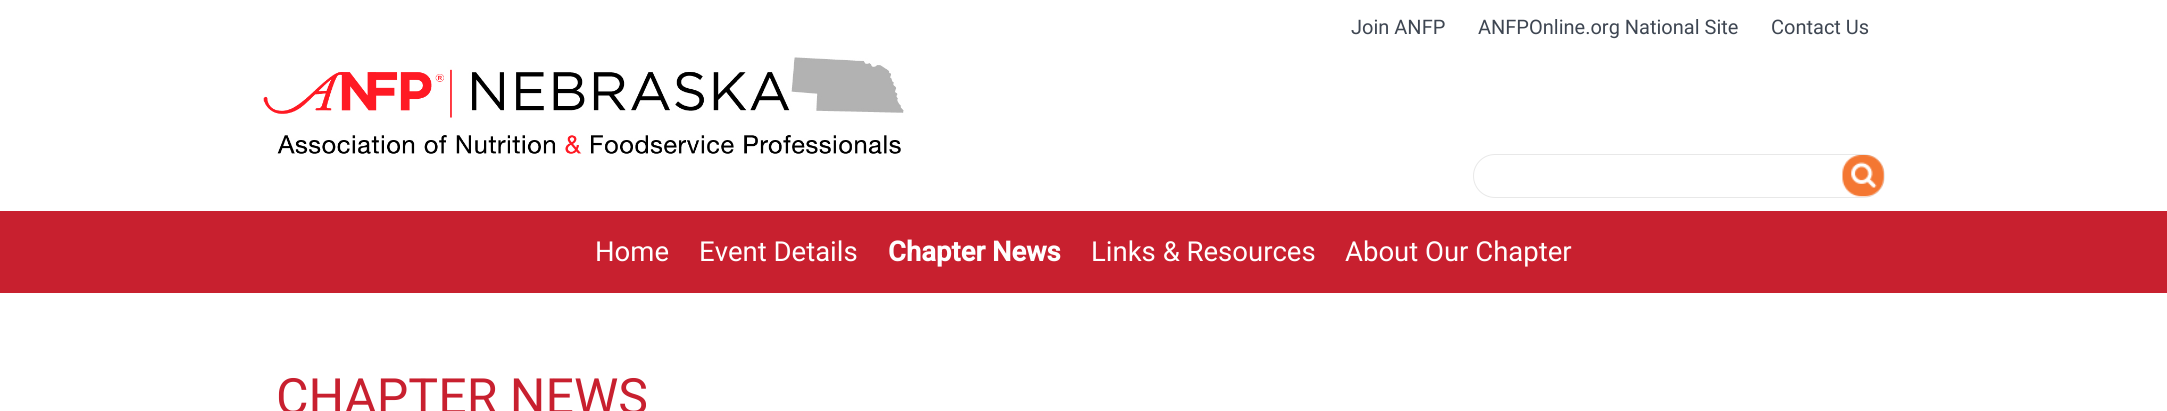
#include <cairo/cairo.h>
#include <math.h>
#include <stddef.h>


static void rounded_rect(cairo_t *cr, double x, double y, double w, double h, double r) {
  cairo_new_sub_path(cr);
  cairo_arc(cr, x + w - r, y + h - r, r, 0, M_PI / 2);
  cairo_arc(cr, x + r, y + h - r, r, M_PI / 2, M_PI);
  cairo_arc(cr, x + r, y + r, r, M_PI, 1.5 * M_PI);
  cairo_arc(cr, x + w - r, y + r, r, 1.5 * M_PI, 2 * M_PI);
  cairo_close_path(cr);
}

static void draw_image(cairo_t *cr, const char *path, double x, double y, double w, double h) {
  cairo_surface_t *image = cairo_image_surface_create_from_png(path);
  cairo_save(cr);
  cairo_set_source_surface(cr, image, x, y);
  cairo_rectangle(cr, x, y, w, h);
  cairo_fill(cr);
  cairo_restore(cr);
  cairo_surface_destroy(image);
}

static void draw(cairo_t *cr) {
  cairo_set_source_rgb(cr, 1, 1, 1);
  cairo_paint(cr);
  rounded_rect(cr, 1473.5, 154.5, 411, 43, 21.5);
  cairo_set_source_rgb(cr, 232 / 255.0, 232 / 255.0, 232 / 255.0);
  cairo_set_line_width(cr, 1);
  cairo_stroke(cr);
  draw_image(cr, "images/1.png", 1842, 155, 42, 42);
  draw_image(cr, "images/2.png", 263, 57, 641, 97);
  cairo_set_source_rgb(cr, 200 / 255.0, 32 / 255.0, 47 / 255.0);
  cairo_rectangle(cr, 0, 211, 2167, 82);
  cairo_fill(cr);
  cairo_select_font_face(cr, "Roboto", CAIRO_FONT_SLANT_NORMAL, CAIRO_FONT_WEIGHT_NORMAL);
  cairo_set_font_size(cr, 20);
  cairo_set_source_rgb(cr, 62 / 255.0, 70 / 255.0, 82 / 255.0);
  cairo_move_to(cr, 1351, 34);
  cairo_show_text(cr, "Join ANFP");
  cairo_move_to(cr, 1478, 34);
  cairo_show_text(cr, "ANFPOnline.org National Site");
  cairo_move_to(cr, 1771, 34);
  cairo_show_text(cr, "Contact Us");
  cairo_set_font_size(cr, 27.5);
  cairo_set_source_rgb(cr, 1, 1, 1);
  cairo_move_to(cr, 595, 261);
  cairo_show_text(cr, "Home");
  cairo_move_to(cr, 699, 261);
  cairo_show_text(cr, "Event Details");
  cairo_select_font_face(cr, "Roboto", CAIRO_FONT_SLANT_NORMAL, CAIRO_FONT_WEIGHT_BOLD);
  cairo_move_to(cr, 888, 261);
  cairo_show_text(cr, "Chapter News");
  cairo_select_font_face(cr, "Roboto", CAIRO_FONT_SLANT_NORMAL, CAIRO_FONT_WEIGHT_NORMAL);
  cairo_move_to(cr, 1091, 261);
  cairo_show_text(cr, "Links & Resources");
  cairo_move_to(cr, 1345, 261);
  cairo_show_text(cr, "About Our Chapter");
  cairo_set_font_size(cr, 50);
  cairo_set_source_rgb(cr, 200 / 255.0, 32 / 255.0, 47 / 255.0);
  cairo_move_to(cr, 276, 414);
  cairo_show_text(cr, "CHAPTER NEWS");
}

int main(void) {
  cairo_surface_t *surface = cairo_image_surface_create(CAIRO_FORMAT_RGB24, 2167, 411);
  cairo_t *cr = cairo_create(surface);
  cairo_font_options_t *options = cairo_font_options_create();
  cairo_font_options_set_hint_metrics(options, CAIRO_HINT_METRICS_OFF);
  cairo_font_options_set_hint_style(options, CAIRO_HINT_STYLE_NONE);
  cairo_set_font_options(cr, options);
  cairo_set_miter_limit(cr, 4);
  draw(cr);
  cairo_surface_write_to_png(surface, "out.png");
  cairo_font_options_destroy(options);
  cairo_destroy(cr);
  cairo_surface_destroy(surface);
  return 0;
}
